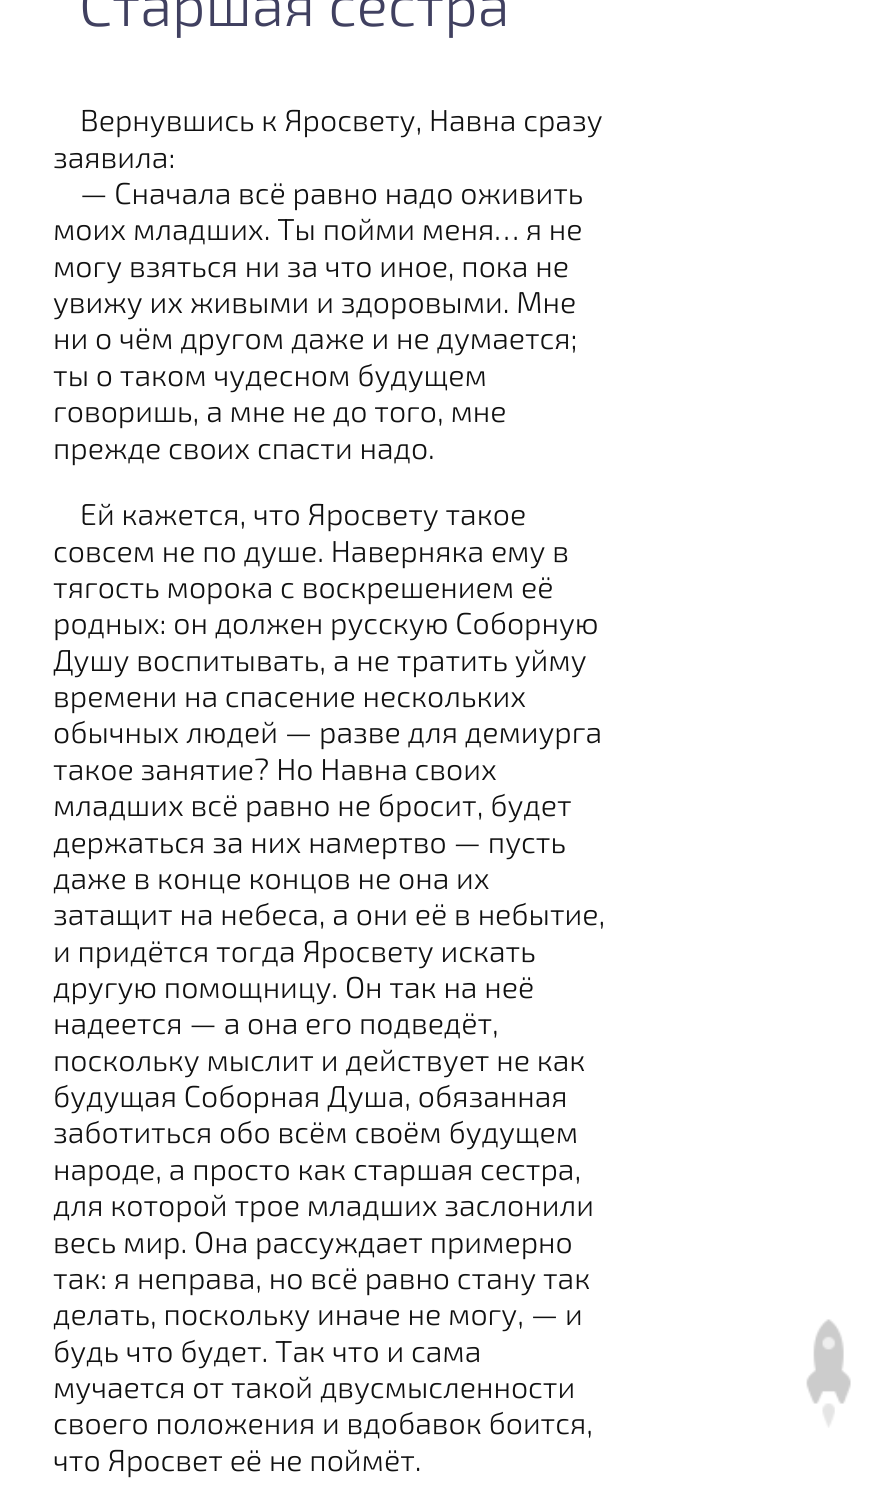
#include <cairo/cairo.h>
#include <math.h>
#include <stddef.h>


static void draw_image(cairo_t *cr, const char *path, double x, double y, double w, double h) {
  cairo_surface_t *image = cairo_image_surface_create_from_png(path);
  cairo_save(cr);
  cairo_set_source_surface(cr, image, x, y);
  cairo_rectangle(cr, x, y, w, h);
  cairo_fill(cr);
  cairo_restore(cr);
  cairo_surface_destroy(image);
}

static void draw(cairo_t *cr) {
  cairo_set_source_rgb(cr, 1, 1, 1);
  cairo_paint(cr);
  draw_image(cr, "images/1.png", 806, 1319, 45, 85);
  draw_image(cr, "images/2.png", 822, 1403, 13, 25);
  cairo_select_font_face(cr, "Exo 2 Light", CAIRO_FONT_SLANT_NORMAL, CAIRO_FONT_WEIGHT_NORMAL);
  cairo_set_font_size(cr, 58.25);
  cairo_set_source_rgb(cr, 64 / 255.0, 64 / 255.0, 96 / 255.0);
  cairo_move_to(cr, 79, 26);
  cairo_show_text(cr, "Старшая сестра");
  cairo_set_font_size(cr, 30.3);
  cairo_set_source_rgb(cr, 17 / 255.0, 17 / 255.0, 17 / 255.0);
  cairo_move_to(cr, 80, 131);
  cairo_show_text(cr, "Вернувшись к Яросвету, Навна сразу");
  cairo_move_to(cr, 53, 168);
  cairo_show_text(cr, "заявила:");
  cairo_move_to(cr, 80, 204);
  cairo_show_text(cr, "— Сначала всё равно надо оживить");
  cairo_move_to(cr, 53, 240);
  cairo_show_text(cr, "моих младших. Ты пойми меня… я не");
  cairo_move_to(cr, 53, 277);
  cairo_show_text(cr, "могу взяться ни за что иное, пока не");
  cairo_move_to(cr, 53, 313);
  cairo_show_text(cr, "увижу их живыми и здоровыми. Мне");
  cairo_move_to(cr, 53, 349);
  cairo_show_text(cr, "ни о чём другом даже и не думается;");
  cairo_move_to(cr, 53, 386);
  cairo_show_text(cr, "ты о таком чудесном будущем");
  cairo_move_to(cr, 53, 422);
  cairo_show_text(cr, "говоришь, а мне не до того, мне");
  cairo_move_to(cr, 53, 459);
  cairo_show_text(cr, "прежде своих спасти надо.");
  cairo_move_to(cr, 80, 525);
  cairo_show_text(cr, "Ей кажется, что Яросвету такое");
  cairo_move_to(cr, 53, 562);
  cairo_show_text(cr, "совсем не по душе. Наверняка ему в");
  cairo_move_to(cr, 53, 598);
  cairo_show_text(cr, "тягость морока с воскрешением её");
  cairo_move_to(cr, 53, 634);
  cairo_show_text(cr, "родных: он должен русскую Соборную");
  cairo_move_to(cr, 53, 671);
  cairo_show_text(cr, "Душу воспитывать, а не тратить уйму");
  cairo_move_to(cr, 53, 707);
  cairo_show_text(cr, "времени на спасение нескольких");
  cairo_move_to(cr, 53, 743);
  cairo_show_text(cr, "обычных людей — разве для демиурга");
  cairo_move_to(cr, 53, 780);
  cairo_show_text(cr, "такое занятие? Но Навна своих");
  cairo_move_to(cr, 53, 816);
  cairo_show_text(cr, "младших всё равно не бросит, будет");
  cairo_move_to(cr, 53, 853);
  cairo_show_text(cr, "держаться за них намертво — пусть");
  cairo_move_to(cr, 53, 889);
  cairo_show_text(cr, "даже в конце концов не она их");
  cairo_move_to(cr, 53, 925);
  cairo_show_text(cr, "затащит на небеса, а они её в небытие,");
  cairo_move_to(cr, 53, 962);
  cairo_show_text(cr, "и придётся тогда Яросвету искать");
  cairo_move_to(cr, 53, 998);
  cairo_show_text(cr, "другую помощницу. Он так на неё");
  cairo_move_to(cr, 53, 1034);
  cairo_show_text(cr, "надеется — а она его подведёт,");
  cairo_move_to(cr, 53, 1071);
  cairo_show_text(cr, "поскольку мыслит и действует не как");
  cairo_move_to(cr, 53, 1107);
  cairo_show_text(cr, "будущая Соборная Душа, обязанная");
  cairo_move_to(cr, 53, 1143);
  cairo_show_text(cr, "заботиться обо всём своём будущем");
  cairo_move_to(cr, 53, 1180);
  cairo_show_text(cr, "народе, а просто как старшая сестра,");
  cairo_move_to(cr, 53, 1216);
  cairo_show_text(cr, "для которой трое младших заслонили");
  cairo_move_to(cr, 53, 1253);
  cairo_show_text(cr, "весь мир. Она рассуждает примерно");
  cairo_move_to(cr, 53, 1289);
  cairo_show_text(cr, "так: я неправа, но всё равно стану так");
  cairo_move_to(cr, 53, 1325);
  cairo_show_text(cr, "делать, поскольку иначе не могу, — и");
  cairo_move_to(cr, 53, 1362);
  cairo_show_text(cr, "будь что будет. Так что и сама");
  cairo_move_to(cr, 53, 1398);
  cairo_show_text(cr, "мучается от такой двусмысленности");
  cairo_move_to(cr, 53, 1434);
  cairo_show_text(cr, "своего положения и вдобавок боится,");
  cairo_move_to(cr, 53, 1471);
  cairo_show_text(cr, "что Яросвет её не поймёт.");
}

int main(void) {
  cairo_surface_t *surface = cairo_image_surface_create(CAIRO_FORMAT_RGB24, 893, 1491);
  cairo_t *cr = cairo_create(surface);
  cairo_font_options_t *options = cairo_font_options_create();
  cairo_font_options_set_hint_metrics(options, CAIRO_HINT_METRICS_OFF);
  cairo_font_options_set_hint_style(options, CAIRO_HINT_STYLE_NONE);
  cairo_set_font_options(cr, options);
  cairo_set_miter_limit(cr, 4);
  draw(cr);
  cairo_surface_write_to_png(surface, "out.png");
  cairo_font_options_destroy(options);
  cairo_destroy(cr);
  cairo_surface_destroy(surface);
  return 0;
}
